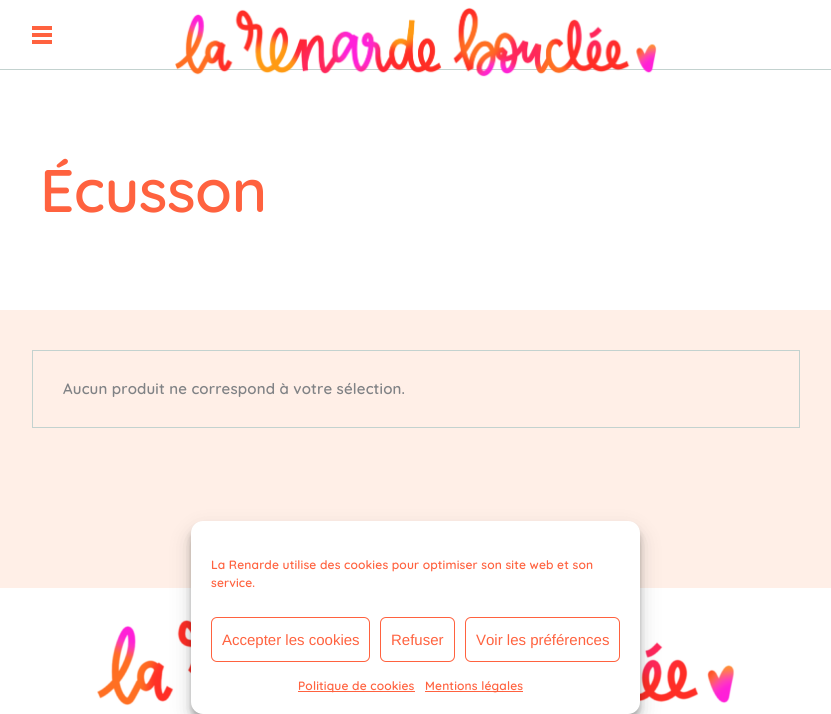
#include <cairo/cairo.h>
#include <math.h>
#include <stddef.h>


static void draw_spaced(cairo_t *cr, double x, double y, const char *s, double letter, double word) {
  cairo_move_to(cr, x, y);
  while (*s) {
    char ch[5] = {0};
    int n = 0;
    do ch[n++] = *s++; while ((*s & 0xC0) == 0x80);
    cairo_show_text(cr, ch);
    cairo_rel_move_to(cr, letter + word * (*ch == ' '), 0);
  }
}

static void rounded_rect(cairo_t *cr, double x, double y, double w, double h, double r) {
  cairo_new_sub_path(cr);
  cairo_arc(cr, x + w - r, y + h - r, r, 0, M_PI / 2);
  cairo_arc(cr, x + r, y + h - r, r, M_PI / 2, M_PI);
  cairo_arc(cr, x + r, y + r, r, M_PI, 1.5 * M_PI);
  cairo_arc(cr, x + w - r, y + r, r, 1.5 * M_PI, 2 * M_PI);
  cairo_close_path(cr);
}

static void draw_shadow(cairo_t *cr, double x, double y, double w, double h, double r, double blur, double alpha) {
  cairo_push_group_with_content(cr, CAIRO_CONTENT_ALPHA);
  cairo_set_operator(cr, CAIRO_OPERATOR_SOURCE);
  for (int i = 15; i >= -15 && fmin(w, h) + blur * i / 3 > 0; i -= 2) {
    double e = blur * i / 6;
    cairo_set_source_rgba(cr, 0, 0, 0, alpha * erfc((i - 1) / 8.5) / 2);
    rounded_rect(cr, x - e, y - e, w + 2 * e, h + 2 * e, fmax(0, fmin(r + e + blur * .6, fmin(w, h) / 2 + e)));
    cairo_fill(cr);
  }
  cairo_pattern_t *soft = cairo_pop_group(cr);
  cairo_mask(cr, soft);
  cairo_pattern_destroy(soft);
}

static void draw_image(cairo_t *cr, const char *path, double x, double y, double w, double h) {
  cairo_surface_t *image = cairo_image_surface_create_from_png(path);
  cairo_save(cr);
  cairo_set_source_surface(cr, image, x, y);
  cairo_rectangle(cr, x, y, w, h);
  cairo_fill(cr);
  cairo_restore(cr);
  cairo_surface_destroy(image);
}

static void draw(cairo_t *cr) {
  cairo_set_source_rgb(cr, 1, 239 / 255.0, 231 / 255.0);
  cairo_paint(cr);
  cairo_set_source_rgb(cr, 1, 1, 1);
  cairo_rectangle(cr, 0, 0, 831, 69);
  cairo_fill(cr);
  cairo_set_source_rgb(cr, 195 / 255.0, 210 / 255.0, 207 / 255.0);
  cairo_rectangle(cr, 0, 69, 831, 1);
  cairo_fill(cr);
  cairo_set_source_rgb(cr, 1, 98 / 255.0, 63 / 255.0);
  cairo_rectangle(cr, 32, 26, 20, 4);
  cairo_fill(cr);
  cairo_rectangle(cr, 32, 33, 20, 4);
  cairo_fill(cr);
  cairo_rectangle(cr, 32, 40, 20, 4);
  cairo_fill(cr);
  cairo_set_source_rgb(cr, 1, 1, 1);
  cairo_rectangle(cr, 0, 70, 831, 240);
  cairo_fill(cr);
  draw_image(cr, "images/1.png", 175, 7, 482, 70);
  cairo_rectangle(cr, 32.5, 350.5, 767, 77);
  cairo_set_source_rgb(cr, 195 / 255.0, 210 / 255.0, 207 / 255.0);
  cairo_set_line_width(cr, 1);
  cairo_stroke(cr);
  cairo_set_source_rgb(cr, 1, 1, 1);
  cairo_rectangle(cr, 0, 588, 831, 126);
  cairo_fill(cr);
  draw_image(cr, "images/2.png", 97, 620, 638, 86);
  cairo_set_source_rgb(cr, 0, 0, 0);
  draw_shadow(cr, 191, 527, 449, 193, 12, 3, 0.23);
  draw_shadow(cr, 191, 531, 449, 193, 12, 10, 0.19);
  cairo_set_source_rgb(cr, 1, 1, 1);
  rounded_rect(cr, 191, 521, 449, 193, 12);
  cairo_fill(cr);
  rounded_rect(cr, 211.5, 617.5, 158, 44, 5.5);
  cairo_set_source_rgb(cr, 1, 98 / 255.0, 63 / 255.0);
  cairo_stroke(cr);
  rounded_rect(cr, 380.5, 617.5, 74, 44, 5.5);
  cairo_stroke(cr);
  rounded_rect(cr, 465.5, 617.5, 154, 44, 5.5);
  cairo_stroke(cr);
  cairo_rectangle(cr, 298, 691, 117, 1);
  cairo_fill(cr);
  cairo_rectangle(cr, 425, 691, 98, 1);
  cairo_fill(cr);
  cairo_select_font_face(cr, "Quicksand SemiBold", CAIRO_FONT_SLANT_NORMAL, CAIRO_FONT_WEIGHT_NORMAL);
  cairo_set_font_size(cr, 60);
  draw_spaced(cr, 40, 212, "Écusson", -0.5, 0);
  cairo_set_font_size(cr, 15);
  cairo_set_source_rgb(cr, 128 / 255.0, 130 / 255.0, 133 / 255.0);
  draw_spaced(cr, 63, 394, "Aucun produit ne correspond à votre sélection.", 0.15, 0);
  cairo_set_font_size(cr, 12);
  cairo_set_source_rgb(cr, 1, 98 / 255.0, 63 / 255.0);
  draw_spaced(cr, 211, 569, "La Renarde utilise des cookies pour optimiser son site web et son", 0.15, 0);
  draw_spaced(cr, 211, 587, "service.", 0.15, 0);
  cairo_select_font_face(cr, "Liberation Sans", CAIRO_FONT_SLANT_NORMAL, CAIRO_FONT_WEIGHT_NORMAL);
  cairo_set_font_size(cr, 15);
  cairo_move_to(cr, 222, 645);
  cairo_show_text(cr, "Accepter les cookies");
  cairo_move_to(cr, 391, 645);
  cairo_show_text(cr, "Refuser");
  cairo_move_to(cr, 476, 645);
  cairo_show_text(cr, "Voir les préférences");
  cairo_select_font_face(cr, "Quicksand SemiBold", CAIRO_FONT_SLANT_NORMAL, CAIRO_FONT_WEIGHT_NORMAL);
  cairo_set_font_size(cr, 12);
  draw_spaced(cr, 298, 690, "Politique de cookies", 0.15, 0);
  draw_spaced(cr, 425, 690, "Mentions légales", 0.15, 0);
}

int main(void) {
  cairo_surface_t *surface = cairo_image_surface_create(CAIRO_FORMAT_RGB24, 831, 714);
  cairo_t *cr = cairo_create(surface);
  cairo_font_options_t *options = cairo_font_options_create();
  cairo_font_options_set_hint_metrics(options, CAIRO_HINT_METRICS_OFF);
  cairo_font_options_set_hint_style(options, CAIRO_HINT_STYLE_NONE);
  cairo_set_font_options(cr, options);
  cairo_set_miter_limit(cr, 4);
  draw(cr);
  cairo_surface_write_to_png(surface, "out.png");
  cairo_font_options_destroy(options);
  cairo_destroy(cr);
  cairo_surface_destroy(surface);
  return 0;
}
